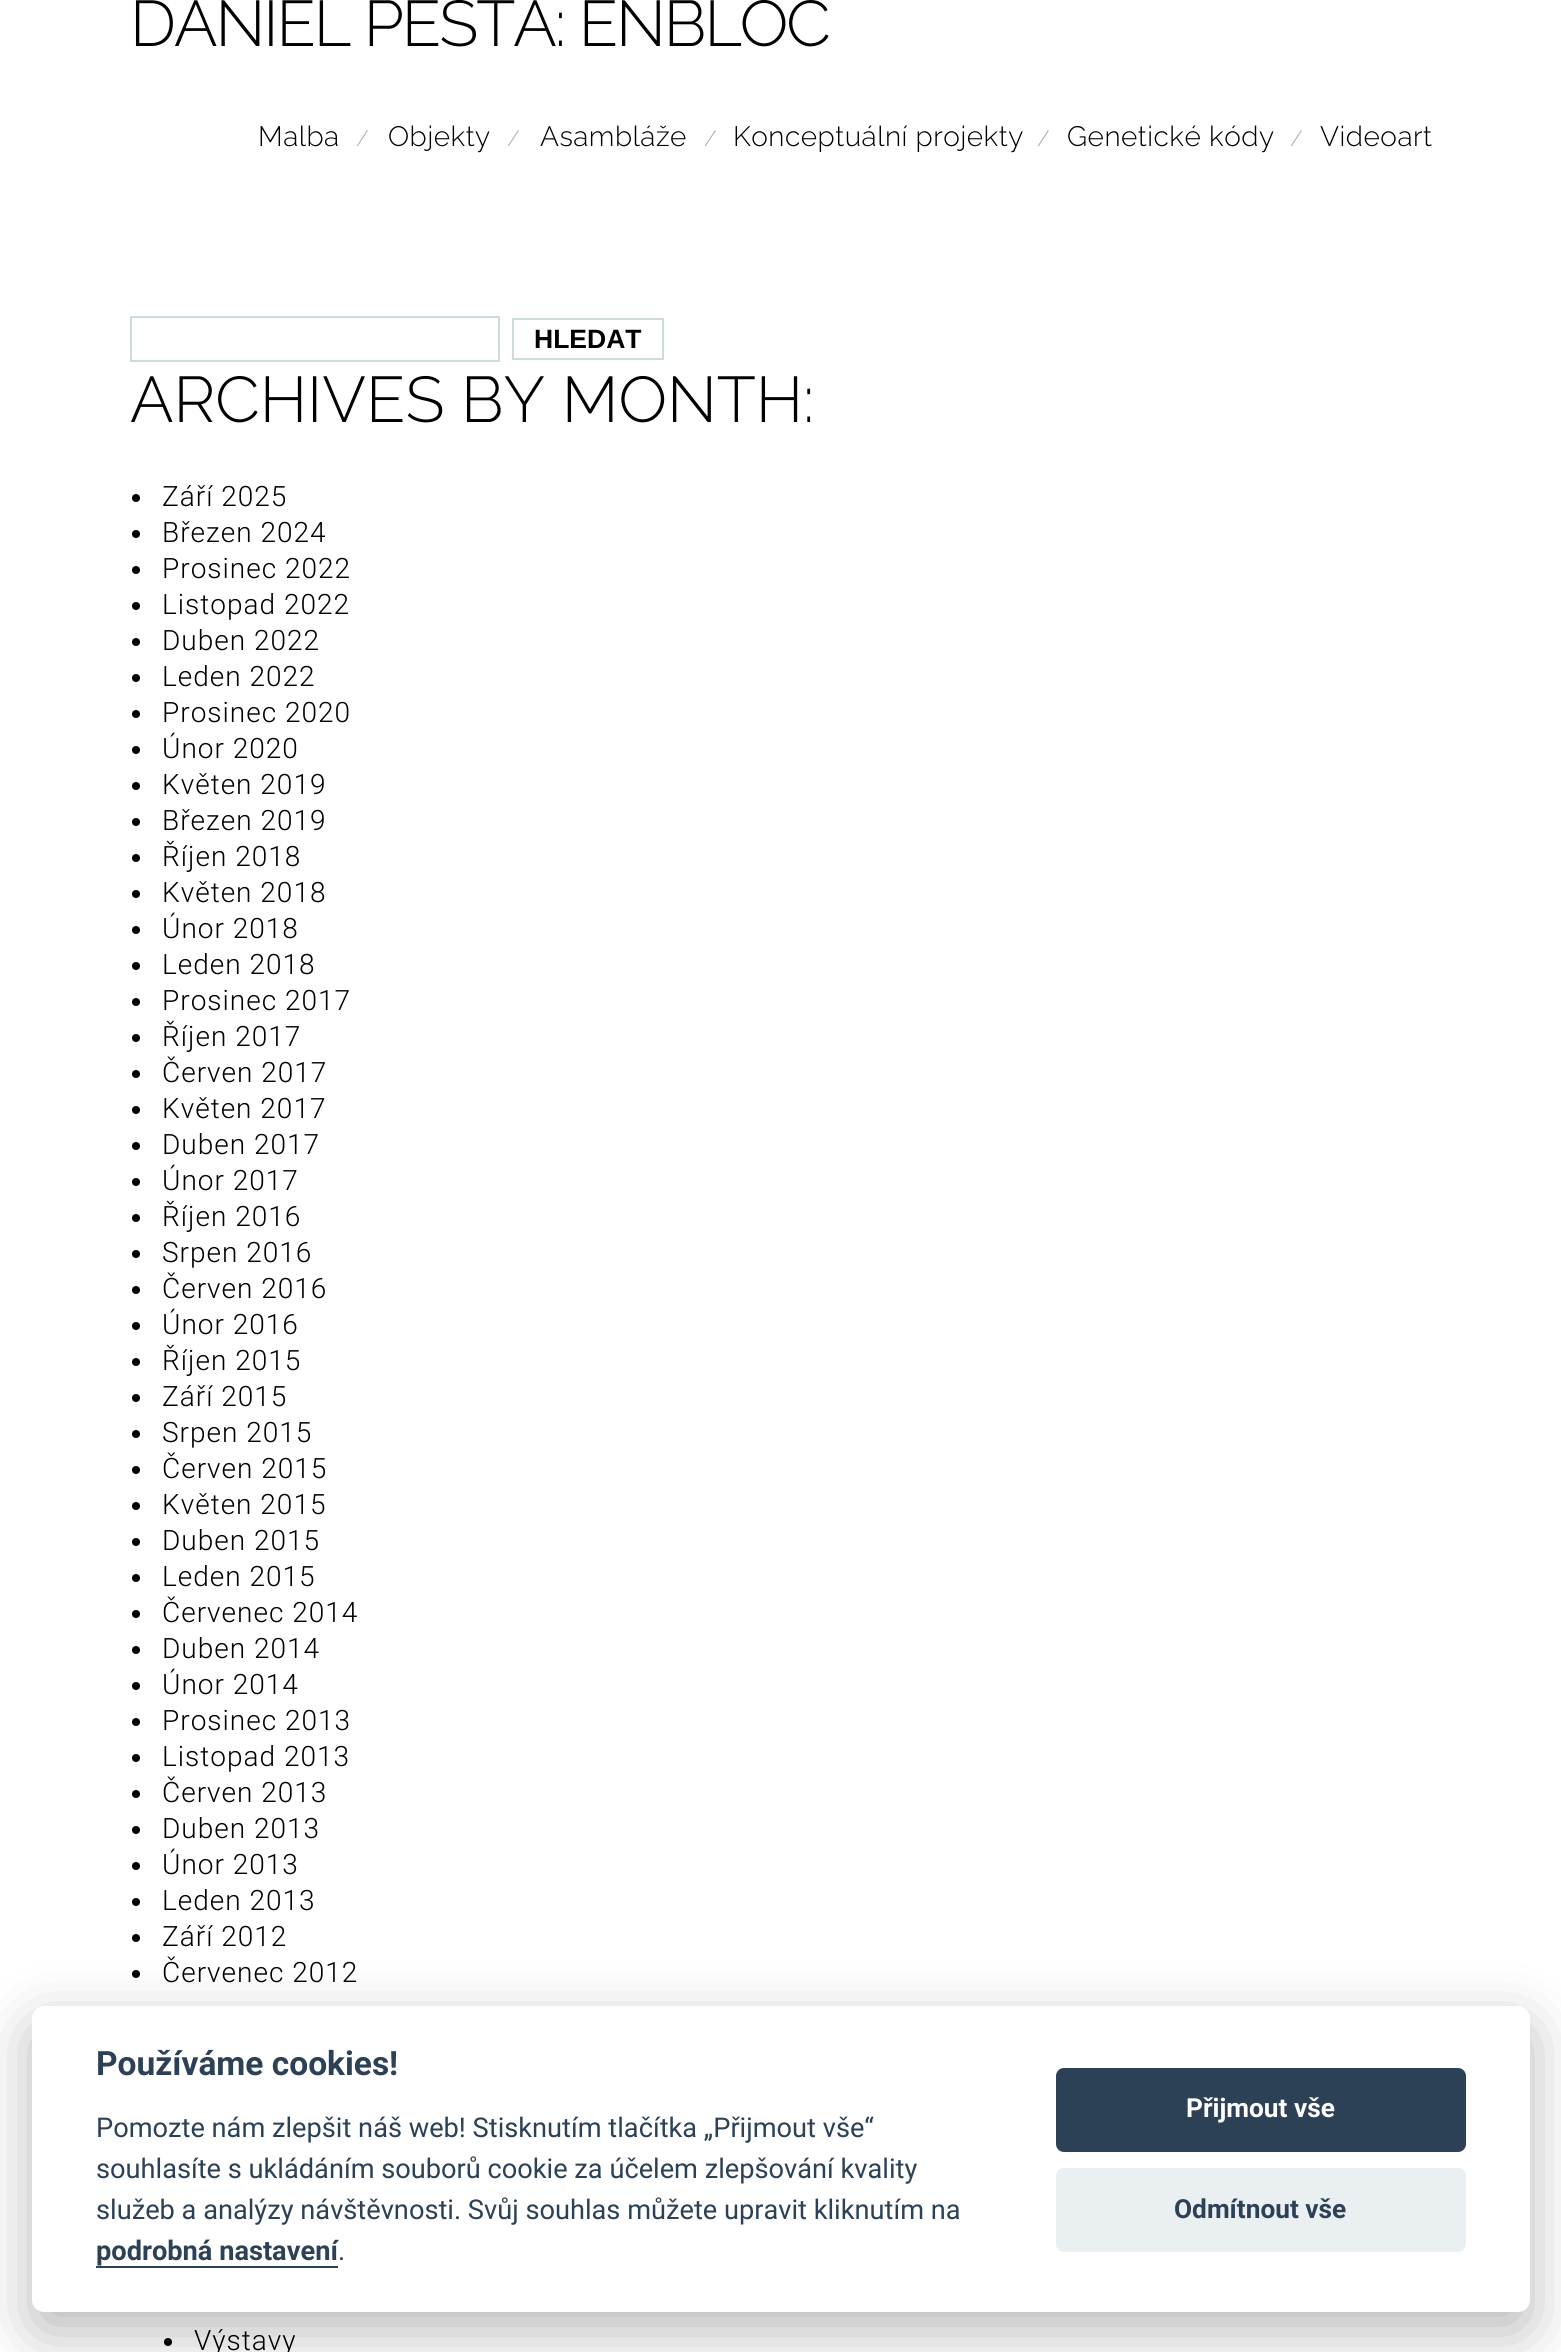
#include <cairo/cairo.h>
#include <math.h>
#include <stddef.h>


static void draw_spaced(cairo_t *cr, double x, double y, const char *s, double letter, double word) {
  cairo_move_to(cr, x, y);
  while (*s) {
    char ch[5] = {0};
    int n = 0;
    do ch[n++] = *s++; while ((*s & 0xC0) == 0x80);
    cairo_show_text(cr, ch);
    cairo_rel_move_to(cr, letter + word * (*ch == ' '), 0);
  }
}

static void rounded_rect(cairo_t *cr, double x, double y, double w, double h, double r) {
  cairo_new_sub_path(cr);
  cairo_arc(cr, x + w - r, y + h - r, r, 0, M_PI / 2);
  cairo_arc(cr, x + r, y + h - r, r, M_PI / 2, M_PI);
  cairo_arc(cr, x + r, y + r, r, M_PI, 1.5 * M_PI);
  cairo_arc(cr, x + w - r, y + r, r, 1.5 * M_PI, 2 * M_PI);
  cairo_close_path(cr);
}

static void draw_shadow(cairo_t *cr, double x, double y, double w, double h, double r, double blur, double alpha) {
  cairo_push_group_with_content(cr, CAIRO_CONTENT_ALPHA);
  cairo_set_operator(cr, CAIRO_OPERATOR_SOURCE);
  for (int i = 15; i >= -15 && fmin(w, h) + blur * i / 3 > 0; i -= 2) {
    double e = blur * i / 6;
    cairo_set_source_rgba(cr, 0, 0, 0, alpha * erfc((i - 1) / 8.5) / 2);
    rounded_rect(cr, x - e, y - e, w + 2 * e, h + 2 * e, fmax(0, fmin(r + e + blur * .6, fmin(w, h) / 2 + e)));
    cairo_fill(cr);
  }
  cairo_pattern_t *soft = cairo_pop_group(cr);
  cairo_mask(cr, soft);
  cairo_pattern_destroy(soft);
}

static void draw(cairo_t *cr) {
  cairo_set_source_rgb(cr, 1, 1, 1);
  cairo_paint(cr);
  cairo_rectangle(cr, 131, 317, 368, 44);
  cairo_set_source_rgb(cr, 206 / 255.0, 220 / 255.0, 214 / 255.0);
  cairo_stroke(cr);
  cairo_rectangle(cr, 513, 319, 150, 40);
  cairo_stroke(cr);
  cairo_set_source_rgb(cr, 0, 0, 0);
  cairo_arc(cr, 136, 498, 4, 0, 2 * M_PI);
  cairo_fill(cr);
  cairo_arc(cr, 136, 534, 4, 0, 2 * M_PI);
  cairo_fill(cr);
  cairo_arc(cr, 136, 570, 4, 0, 2 * M_PI);
  cairo_fill(cr);
  cairo_arc(cr, 136, 606, 4, 0, 2 * M_PI);
  cairo_fill(cr);
  cairo_arc(cr, 136, 642, 4, 0, 2 * M_PI);
  cairo_fill(cr);
  cairo_arc(cr, 136, 678, 4, 0, 2 * M_PI);
  cairo_fill(cr);
  cairo_arc(cr, 136, 714, 4, 0, 2 * M_PI);
  cairo_fill(cr);
  cairo_arc(cr, 136, 750, 4, 0, 2 * M_PI);
  cairo_fill(cr);
  cairo_arc(cr, 136, 786, 4, 0, 2 * M_PI);
  cairo_fill(cr);
  cairo_arc(cr, 136, 822, 4, 0, 2 * M_PI);
  cairo_fill(cr);
  cairo_arc(cr, 136, 858, 4, 0, 2 * M_PI);
  cairo_fill(cr);
  cairo_arc(cr, 136, 894, 4, 0, 2 * M_PI);
  cairo_fill(cr);
  cairo_arc(cr, 136, 930, 4, 0, 2 * M_PI);
  cairo_fill(cr);
  cairo_arc(cr, 136, 966, 4, 0, 2 * M_PI);
  cairo_fill(cr);
  cairo_arc(cr, 136, 1002, 4, 0, 2 * M_PI);
  cairo_fill(cr);
  cairo_arc(cr, 136, 1038, 4, 0, 2 * M_PI);
  cairo_fill(cr);
  cairo_arc(cr, 136, 1074, 4, 0, 2 * M_PI);
  cairo_fill(cr);
  cairo_arc(cr, 136, 1110, 4, 0, 2 * M_PI);
  cairo_fill(cr);
  cairo_arc(cr, 136, 1146, 4, 0, 2 * M_PI);
  cairo_fill(cr);
  cairo_arc(cr, 136, 1182, 4, 0, 2 * M_PI);
  cairo_fill(cr);
  cairo_arc(cr, 136, 1218, 4, 0, 2 * M_PI);
  cairo_fill(cr);
  cairo_arc(cr, 136, 1254, 4, 0, 2 * M_PI);
  cairo_fill(cr);
  cairo_arc(cr, 136, 1290, 4, 0, 2 * M_PI);
  cairo_fill(cr);
  cairo_arc(cr, 136, 1326, 4, 0, 2 * M_PI);
  cairo_fill(cr);
  cairo_arc(cr, 136, 1362, 4, 0, 2 * M_PI);
  cairo_fill(cr);
  cairo_arc(cr, 136, 1398, 4, 0, 2 * M_PI);
  cairo_fill(cr);
  cairo_arc(cr, 136, 1434, 4, 0, 2 * M_PI);
  cairo_fill(cr);
  cairo_arc(cr, 136, 1470, 4, 0, 2 * M_PI);
  cairo_fill(cr);
  cairo_arc(cr, 136, 1506, 4, 0, 2 * M_PI);
  cairo_fill(cr);
  cairo_arc(cr, 136, 1542, 4, 0, 2 * M_PI);
  cairo_fill(cr);
  cairo_arc(cr, 136, 1578, 4, 0, 2 * M_PI);
  cairo_fill(cr);
  cairo_arc(cr, 136, 1614, 4, 0, 2 * M_PI);
  cairo_fill(cr);
  cairo_arc(cr, 136, 1650, 4, 0, 2 * M_PI);
  cairo_fill(cr);
  cairo_arc(cr, 136, 1686, 4, 0, 2 * M_PI);
  cairo_fill(cr);
  cairo_arc(cr, 136, 1722, 4, 0, 2 * M_PI);
  cairo_fill(cr);
  cairo_arc(cr, 136, 1758, 4, 0, 2 * M_PI);
  cairo_fill(cr);
  cairo_arc(cr, 136, 1794, 4, 0, 2 * M_PI);
  cairo_fill(cr);
  cairo_arc(cr, 136, 1830, 4, 0, 2 * M_PI);
  cairo_fill(cr);
  cairo_arc(cr, 136, 1866, 4, 0, 2 * M_PI);
  cairo_fill(cr);
  cairo_arc(cr, 136, 1902, 4, 0, 2 * M_PI);
  cairo_fill(cr);
  cairo_arc(cr, 136, 1938, 4, 0, 2 * M_PI);
  cairo_fill(cr);
  cairo_arc(cr, 136, 1974, 4, 0, 2 * M_PI);
  cairo_fill(cr);
  cairo_arc(cr, 168, 2342, 4, 0, 2 * M_PI);
  cairo_fill(cr);
  cairo_set_source_rgb(cr, 2 / 255.0, 2 / 255.0, 3 / 255.0);
  draw_shadow(cr, 32, 2026, 1498, 306, 12, 30, 0.28);
  cairo_set_source_rgb(cr, 1, 1, 1);
  rounded_rect(cr, 32, 2006, 1498, 306, 12);
  cairo_fill(cr);
  cairo_set_source_rgb(cr, 45 / 255.0, 65 / 255.0, 86 / 255.0);
  cairo_rectangle(cr, 96, 2266, 242, 2);
  cairo_fill(cr);
  rounded_rect(cr, 1056, 2068, 410, 84, 8);
  cairo_fill(cr);
  cairo_set_source_rgb(cr, 234 / 255.0, 239 / 255.0, 242 / 255.0);
  rounded_rect(cr, 1056, 2168, 410, 84, 8);
  cairo_fill(cr);
  cairo_select_font_face(cr, "Raleway Light", CAIRO_FONT_SLANT_NORMAL, CAIRO_FONT_WEIGHT_NORMAL);
  cairo_set_font_size(cr, 64.4);
  cairo_set_source_rgb(cr, 0, 0, 0);
  draw_spaced(cr, 130, 46, "DANIEL PEŠTA: ENBLOC", -2, 0);
  cairo_set_font_size(cr, 28);
  draw_spaced(cr, 258, 146, "Malba", 0.5, 0);
  cairo_set_font_size(cr, 22);
  cairo_set_source_rgb(cr, 173 / 255.0, 173 / 255.0, 173 / 255.0);
  draw_spaced(cr, 356, 146, "/", 1, 0);
  cairo_set_font_size(cr, 28);
  cairo_set_source_rgb(cr, 0, 0, 0);
  draw_spaced(cr, 388, 146, "Objekty", 0.5, 0);
  cairo_set_font_size(cr, 22);
  cairo_set_source_rgb(cr, 173 / 255.0, 173 / 255.0, 173 / 255.0);
  draw_spaced(cr, 507, 146, "/", 1, 0);
  cairo_set_font_size(cr, 28);
  cairo_set_source_rgb(cr, 0, 0, 0);
  draw_spaced(cr, 540, 146, "Asambláže", 0.5, 0);
  cairo_set_font_size(cr, 22);
  cairo_set_source_rgb(cr, 173 / 255.0, 173 / 255.0, 173 / 255.0);
  draw_spaced(cr, 704, 146, "/", 1, 0);
  cairo_set_font_size(cr, 28);
  cairo_set_source_rgb(cr, 0, 0, 0);
  draw_spaced(cr, 733, 146, "Konceptuální projekty", 0.5, 0);
  cairo_set_font_size(cr, 22);
  cairo_set_source_rgb(cr, 173 / 255.0, 173 / 255.0, 173 / 255.0);
  draw_spaced(cr, 1037, 146, "/", 1, 0);
  cairo_set_font_size(cr, 28);
  cairo_set_source_rgb(cr, 0, 0, 0);
  draw_spaced(cr, 1067, 146, "Genetické kódy", 0.5, 0);
  cairo_set_font_size(cr, 22);
  cairo_set_source_rgb(cr, 173 / 255.0, 173 / 255.0, 173 / 255.0);
  draw_spaced(cr, 1290, 146, "/", 1, 0);
  cairo_set_font_size(cr, 28);
  cairo_set_source_rgb(cr, 0, 0, 0);
  draw_spaced(cr, 1320, 146, "Videoart", 0.5, 0);
  cairo_select_font_face(cr, "Liberation Sans", CAIRO_FONT_SLANT_NORMAL, CAIRO_FONT_WEIGHT_BOLD);
  cairo_set_font_size(cr, 26.5);
  cairo_move_to(cr, 534, 348);
  cairo_show_text(cr, "HLEDAT");
  cairo_select_font_face(cr, "Raleway Light", CAIRO_FONT_SLANT_NORMAL, CAIRO_FONT_WEIGHT_NORMAL);
  cairo_set_font_size(cr, 64.4);
  cairo_move_to(cr, 130, 422);
  cairo_show_text(cr, "ARCHIVES BY MONTH:");
  cairo_select_font_face(cr, "Roboto Light", CAIRO_FONT_SLANT_NORMAL, CAIRO_FONT_WEIGHT_NORMAL);
  cairo_set_font_size(cr, 28);
  draw_spaced(cr, 162, 506, "Září 2025", 1, 0);
  draw_spaced(cr, 162, 542, "Březen 2024", 1, 0);
  draw_spaced(cr, 162, 578, "Prosinec 2022", 1, 0);
  draw_spaced(cr, 162, 614, "Listopad 2022", 1, 0);
  draw_spaced(cr, 162, 650, "Duben 2022", 1, 0);
  draw_spaced(cr, 162, 686, "Leden 2022", 1, 0);
  draw_spaced(cr, 162, 722, "Prosinec 2020", 1, 0);
  draw_spaced(cr, 162, 758, "Únor 2020", 1, 0);
  draw_spaced(cr, 162, 794, "Květen 2019", 1, 0);
  draw_spaced(cr, 162, 830, "Březen 2019", 1, 0);
  draw_spaced(cr, 162, 866, "Říjen 2018", 1, 0);
  draw_spaced(cr, 162, 902, "Květen 2018", 1, 0);
  draw_spaced(cr, 162, 938, "Únor 2018", 1, 0);
  draw_spaced(cr, 162, 974, "Leden 2018", 1, 0);
  draw_spaced(cr, 162, 1010, "Prosinec 2017", 1, 0);
  draw_spaced(cr, 162, 1046, "Říjen 2017", 1, 0);
  draw_spaced(cr, 162, 1082, "Červen 2017", 1, 0);
  draw_spaced(cr, 162, 1118, "Květen 2017", 1, 0);
  draw_spaced(cr, 162, 1154, "Duben 2017", 1, 0);
  draw_spaced(cr, 162, 1190, "Únor 2017", 1, 0);
  draw_spaced(cr, 162, 1226, "Říjen 2016", 1, 0);
  draw_spaced(cr, 162, 1262, "Srpen 2016", 1, 0);
  draw_spaced(cr, 162, 1298, "Červen 2016", 1, 0);
  draw_spaced(cr, 162, 1334, "Únor 2016", 1, 0);
  draw_spaced(cr, 162, 1370, "Říjen 2015", 1, 0);
  draw_spaced(cr, 162, 1406, "Září 2015", 1, 0);
  draw_spaced(cr, 162, 1442, "Srpen 2015", 1, 0);
  draw_spaced(cr, 162, 1478, "Červen 2015", 1, 0);
  draw_spaced(cr, 162, 1514, "Květen 2015", 1, 0);
  draw_spaced(cr, 162, 1550, "Duben 2015", 1, 0);
  draw_spaced(cr, 162, 1586, "Leden 2015", 1, 0);
  draw_spaced(cr, 162, 1622, "Červenec 2014", 1, 0);
  draw_spaced(cr, 162, 1658, "Duben 2014", 1, 0);
  draw_spaced(cr, 162, 1694, "Únor 2014", 1, 0);
  draw_spaced(cr, 162, 1730, "Prosinec 2013", 1, 0);
  draw_spaced(cr, 162, 1766, "Listopad 2013", 1, 0);
  draw_spaced(cr, 162, 1802, "Červen 2013", 1, 0);
  draw_spaced(cr, 162, 1838, "Duben 2013", 1, 0);
  draw_spaced(cr, 162, 1874, "Únor 2013", 1, 0);
  draw_spaced(cr, 162, 1910, "Leden 2013", 1, 0);
  draw_spaced(cr, 162, 1946, "Září 2012", 1, 0);
  draw_spaced(cr, 162, 1982, "Červenec 2012", 1, 0);
  draw_spaced(cr, 194, 2350, "Výstavy", 1, 0);
  cairo_select_font_face(cr, "Roboto", CAIRO_FONT_SLANT_NORMAL, CAIRO_FONT_WEIGHT_BOLD);
  cairo_set_font_size(cr, 33.5);
  cairo_set_source_rgb(cr, 45 / 255.0, 65 / 255.0, 86 / 255.0);
  cairo_move_to(cr, 96, 2075);
  cairo_show_text(cr, "Používáme cookies!");
  cairo_select_font_face(cr, "Roboto", CAIRO_FONT_SLANT_NORMAL, CAIRO_FONT_WEIGHT_NORMAL);
  cairo_set_font_size(cr, 27.2);
  cairo_move_to(cr, 96, 2137);
  cairo_show_text(cr, "Pomozte nám zlepšit náš web! Stisknutím tlačítka „Přijmout vše“");
  cairo_move_to(cr, 96, 2178);
  cairo_show_text(cr, "souhlasíte s ukládáním souborů cookie za účelem zlepšování kvality");
  cairo_move_to(cr, 96, 2219);
  cairo_show_text(cr, "služeb a analýzy návštěvnosti. Svůj souhlas můžete upravit kliknutím na");
  cairo_select_font_face(cr, "Roboto", CAIRO_FONT_SLANT_NORMAL, CAIRO_FONT_WEIGHT_BOLD);
  cairo_move_to(cr, 96, 2260);
  cairo_show_text(cr, "podrobná nastavení");
  cairo_select_font_face(cr, "Roboto", CAIRO_FONT_SLANT_NORMAL, CAIRO_FONT_WEIGHT_NORMAL);
  cairo_move_to(cr, 338, 2260);
  cairo_show_text(cr, ".");
  cairo_select_font_face(cr, "Roboto", CAIRO_FONT_SLANT_NORMAL, CAIRO_FONT_WEIGHT_BOLD);
  cairo_set_font_size(cr, 26.25);
  cairo_set_source_rgb(cr, 1, 1, 1);
  cairo_move_to(cr, 1186, 2117);
  cairo_show_text(cr, "Přijmout vše");
  cairo_set_source_rgb(cr, 45 / 255.0, 65 / 255.0, 86 / 255.0);
  cairo_move_to(cr, 1174, 2218);
  cairo_show_text(cr, "Odmítnout vše");
}

int main(void) {
  cairo_surface_t *surface = cairo_image_surface_create(CAIRO_FORMAT_RGB24, 1561, 2352);
  cairo_t *cr = cairo_create(surface);
  cairo_font_options_t *options = cairo_font_options_create();
  cairo_font_options_set_hint_metrics(options, CAIRO_HINT_METRICS_OFF);
  cairo_font_options_set_hint_style(options, CAIRO_HINT_STYLE_NONE);
  cairo_set_font_options(cr, options);
  cairo_set_miter_limit(cr, 4);
  draw(cr);
  cairo_surface_write_to_png(surface, "out.png");
  cairo_font_options_destroy(options);
  cairo_destroy(cr);
  cairo_surface_destroy(surface);
  return 0;
}
